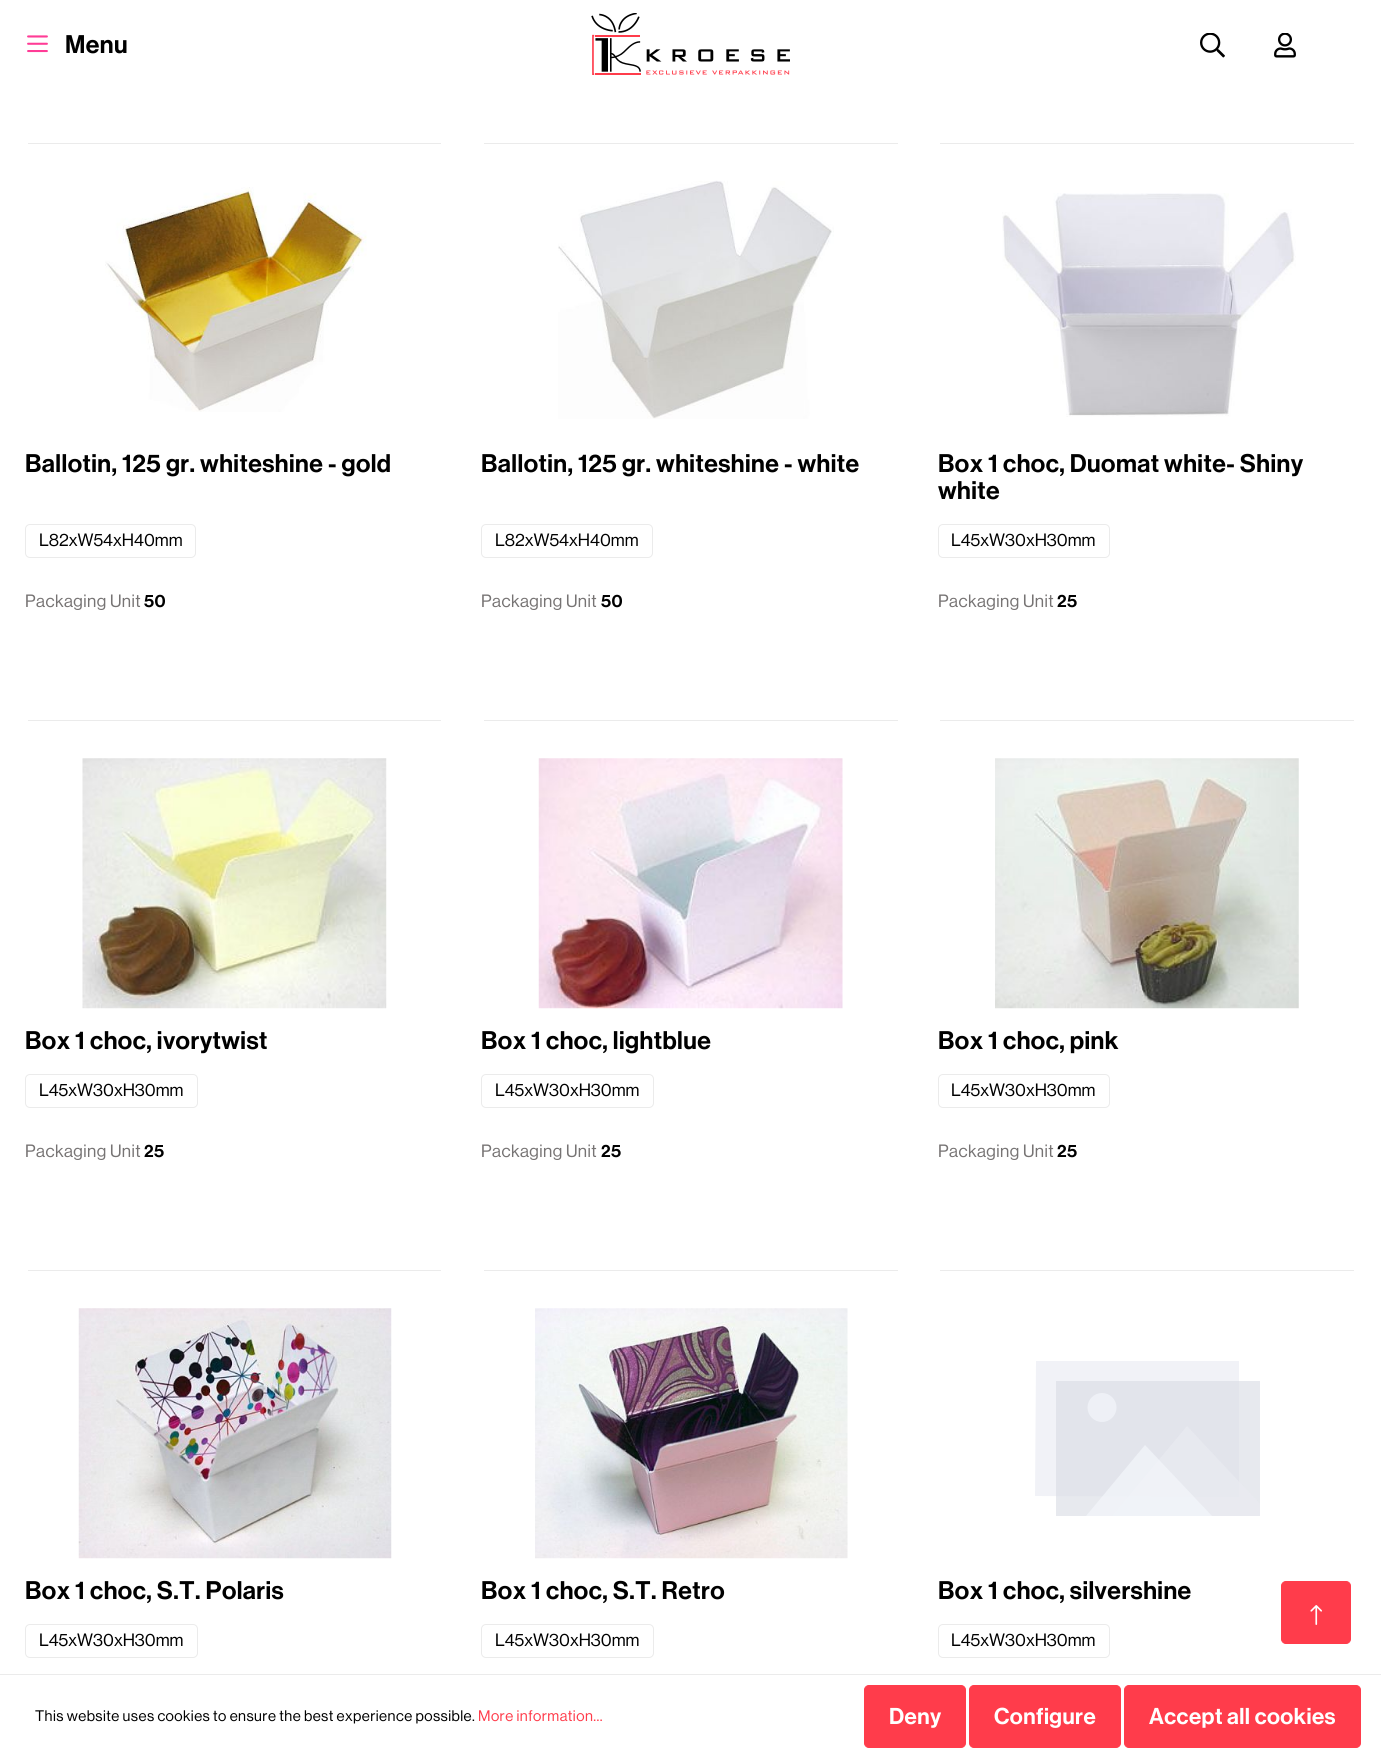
#include <cairo/cairo.h>
#include <math.h>
#include <stddef.h>


static void draw_spaced(cairo_t *cr, double x, double y, const char *s, double letter, double word) {
  cairo_move_to(cr, x, y);
  while (*s) {
    char ch[5] = {0};
    int n = 0;
    do ch[n++] = *s++; while ((*s & 0xC0) == 0x80);
    cairo_show_text(cr, ch);
    cairo_rel_move_to(cr, letter + word * (*ch == ' '), 0);
  }
}

static void rounded_rect(cairo_t *cr, double x, double y, double w, double h, double r) {
  cairo_new_sub_path(cr);
  cairo_arc(cr, x + w - r, y + h - r, r, 0, M_PI / 2);
  cairo_arc(cr, x + r, y + h - r, r, M_PI / 2, M_PI);
  cairo_arc(cr, x + r, y + r, r, M_PI, 1.5 * M_PI);
  cairo_arc(cr, x + w - r, y + r, r, 1.5 * M_PI, 2 * M_PI);
  cairo_close_path(cr);
}

static void draw_image(cairo_t *cr, const char *path, double x, double y, double w, double h) {
  cairo_surface_t *image = cairo_image_surface_create_from_png(path);
  cairo_save(cr);
  cairo_set_source_surface(cr, image, x, y);
  cairo_rectangle(cr, x, y, w, h);
  cairo_fill(cr);
  cairo_restore(cr);
  cairo_surface_destroy(image);
}

static void draw(cairo_t *cr) {
  cairo_set_source_rgb(cr, 1, 1, 1);
  cairo_paint(cr);
  draw_image(cr, "images/1.png", 27, 35, 21, 18);
  draw_image(cr, "images/2.png", 591, 13, 199, 62);
  draw_image(cr, "images/3.png", 1200, 33, 25, 25);
  draw_image(cr, "images/4.png", 1274, 33, 22, 25);
  cairo_set_source_rgb(cr, 235 / 255.0, 235 / 255.0, 235 / 255.0);
  cairo_rectangle(cr, 28, 143, 413, 1);
  cairo_fill(cr);
  cairo_rectangle(cr, 484, 143, 414, 1);
  cairo_fill(cr);
  cairo_rectangle(cr, 940, 143, 414, 1);
  cairo_fill(cr);
  cairo_rectangle(cr, 28, 720, 413, 1);
  cairo_fill(cr);
  draw_image(cr, "images/5.png", 105, 187, 262, 225);
  rounded_rect(cr, 25.5, 524.5, 170, 33, 4.5);
  cairo_set_line_width(cr, 1);
  cairo_stroke(cr);
  cairo_rectangle(cr, 484, 720, 414, 1);
  cairo_fill(cr);
  draw_image(cr, "images/6.png", 558, 180, 276, 239);
  rounded_rect(cr, 481.5, 524.5, 171, 33, 4.5);
  cairo_stroke(cr);
  cairo_rectangle(cr, 940, 720, 414, 1);
  cairo_fill(cr);
  draw_image(cr, "images/7.png", 1002, 193, 294, 224);
  rounded_rect(cr, 938.5, 524.5, 171, 33, 4.5);
  cairo_stroke(cr);
  cairo_rectangle(cr, 28, 1270, 413, 1);
  cairo_fill(cr);
  draw_image(cr, "images/8.png", 82, 758, 305, 251);
  rounded_rect(cr, 25.5, 1074.5, 172, 33, 4.5);
  cairo_stroke(cr);
  cairo_rectangle(cr, 484, 1270, 414, 1);
  cairo_fill(cr);
  draw_image(cr, "images/9.png", 538, 758, 305, 251);
  rounded_rect(cr, 481.5, 1074.5, 172, 33, 4.5);
  cairo_stroke(cr);
  cairo_rectangle(cr, 940, 1270, 414, 1);
  cairo_fill(cr);
  draw_image(cr, "images/10.png", 995, 758, 304, 251);
  rounded_rect(cr, 938.5, 1074.5, 171, 33, 4.5);
  cairo_stroke(cr);
  draw_image(cr, "images/11.png", 78, 1308, 314, 251);
  rounded_rect(cr, 25.5, 1624.5, 172, 33, 4.5);
  cairo_stroke(cr);
  draw_image(cr, "images/12.png", 535, 1308, 313, 251);
  rounded_rect(cr, 481.5, 1624.5, 172, 33, 4.5);
  cairo_stroke(cr);
  cairo_set_source_rgb(cr, 241 / 255.0, 242 / 255.0, 247 / 255.0);
  cairo_new_path(cr);
  cairo_move_to(cr, 1035, 1496);
  cairo_line_to(cr, 1036, 1361);
  cairo_line_to(cr, 1239, 1361);
  cairo_line_to(cr, 1239, 1497);
  cairo_close_path(cr);
  cairo_fill(cr);
  cairo_set_source_rgba(cr, 218 / 255.0, 221 / 255.0, 229 / 255.0, 0.65);
  cairo_rectangle(cr, 1056, 1381, 204, 135);
  cairo_fill(cr);
  cairo_set_source_rgba(cr, 233 / 255.0, 235 / 255.0, 242 / 255.0, 0.65);
  cairo_set_fill_rule(cr, CAIRO_FILL_RULE_EVEN_ODD);
  cairo_new_path(cr);
  cairo_move_to(cr, 1112, 1516);
  cairo_line_to(cr, 1260, 1516);
  cairo_line_to(cr, 1260, 1504);
  cairo_line_to(cr, 1187, 1426);
  cairo_close_path(cr);
  cairo_fill(cr);
  cairo_set_source_rgb(cr, 238 / 255.0, 240 / 255.0, 246 / 255.0);
  cairo_arc(cr, 1102, 1407.5, 14.5, 0, 2 * M_PI);
  cairo_fill(cr);
  cairo_set_source_rgba(cr, 245 / 255.0, 247 / 255.0, 252 / 255.0, 0.65);
  cairo_new_path(cr);
  cairo_move_to(cr, 1145, 1445);
  cairo_line_to(cr, 1086, 1516);
  cairo_line_to(cr, 1212, 1516);
  cairo_close_path(cr);
  cairo_fill(cr);
  rounded_rect(cr, 938.5, 1624.5, 171, 33, 4.5);
  cairo_set_source_rgb(cr, 235 / 255.0, 235 / 255.0, 235 / 255.0);
  cairo_stroke(cr);
  cairo_set_source_rgb(cr, 1, 60 / 255.0, 75 / 255.0);
  rounded_rect(cr, 1281.5, 1581.5, 69, 62, 4.5);
  cairo_fill_preserve(cr);
  cairo_stroke(cr);
  draw_image(cr, "images/13.png", 1310, 1605, 12, 20);
  cairo_set_source_rgb(cr, 235 / 255.0, 235 / 255.0, 235 / 255.0);
  cairo_rectangle(cr, 0, 1674, 1381, 1);
  cairo_fill(cr);
  cairo_set_source_rgb(cr, 1, 60 / 255.0, 75 / 255.0);
  rounded_rect(cr, 864.5, 1685.5, 101, 62, 4.5);
  cairo_fill_preserve(cr);
  cairo_stroke(cr);
  rounded_rect(cr, 969.5, 1685.5, 151, 62, 4.5);
  cairo_fill_preserve(cr);
  cairo_stroke(cr);
  rounded_rect(cr, 1124.5, 1685.5, 236, 62, 4.5);
  cairo_fill_preserve(cr);
  cairo_stroke(cr);
  cairo_select_font_face(cr, "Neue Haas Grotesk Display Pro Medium", CAIRO_FONT_SLANT_NORMAL, CAIRO_FONT_WEIGHT_NORMAL);
  cairo_set_font_size(cr, 25);
  cairo_set_source_rgb(cr, 0, 0, 0);
  draw_spaced(cr, 65, 53, "Menu", 0.45, 0);
  draw_spaced(cr, 25, 472, "Ballotin, 125 gr. whiteshine - gold", 0.45, 0);
  cairo_select_font_face(cr, "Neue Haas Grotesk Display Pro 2 Medium", CAIRO_FONT_SLANT_NORMAL, CAIRO_FONT_WEIGHT_NORMAL);
  cairo_set_font_size(cr, 17.5);
  cairo_move_to(cr, 39, 546);
  cairo_show_text(cr, "L82xW54xH40mm");
  cairo_set_source_rgb(cr, 119 / 255.0, 116 / 255.0, 116 / 255.0);
  draw_spaced(cr, 25, 607, "Packaging Unit", 0.45, 0);
  cairo_select_font_face(cr, "Neue Haas Grotesk Display Pro Medium", CAIRO_FONT_SLANT_NORMAL, CAIRO_FONT_WEIGHT_NORMAL);
  cairo_set_source_rgb(cr, 0, 0, 0);
  draw_spaced(cr, 144, 607, "50", 0.45, 0);
  cairo_set_font_size(cr, 25);
  draw_spaced(cr, 481, 472, "Ballotin, 125 gr. whiteshine - white", 0.45, 0);
  cairo_select_font_face(cr, "Neue Haas Grotesk Display Pro 2 Medium", CAIRO_FONT_SLANT_NORMAL, CAIRO_FONT_WEIGHT_NORMAL);
  cairo_set_font_size(cr, 17.5);
  cairo_move_to(cr, 495, 546);
  cairo_show_text(cr, "L82xW54xH40mm");
  cairo_set_source_rgb(cr, 119 / 255.0, 116 / 255.0, 116 / 255.0);
  draw_spaced(cr, 481, 607, "Packaging Unit", 0.45, 0);
  cairo_select_font_face(cr, "Neue Haas Grotesk Display Pro Medium", CAIRO_FONT_SLANT_NORMAL, CAIRO_FONT_WEIGHT_NORMAL);
  cairo_set_source_rgb(cr, 0, 0, 0);
  draw_spaced(cr, 601, 607, "50", 0.45, 0);
  cairo_set_font_size(cr, 25);
  draw_spaced(cr, 938, 472, "Box 1 choc, Duomat white- Shiny", 0.45, 0);
  draw_spaced(cr, 938, 499, "white", 0.45, 0);
  cairo_select_font_face(cr, "Neue Haas Grotesk Display Pro 2 Medium", CAIRO_FONT_SLANT_NORMAL, CAIRO_FONT_WEIGHT_NORMAL);
  cairo_set_font_size(cr, 17.5);
  cairo_move_to(cr, 951, 546);
  cairo_show_text(cr, "L45xW30xH30mm");
  cairo_set_source_rgb(cr, 119 / 255.0, 116 / 255.0, 116 / 255.0);
  draw_spaced(cr, 938, 607, "Packaging Unit", 0.45, 0);
  cairo_select_font_face(cr, "Neue Haas Grotesk Display Pro Medium", CAIRO_FONT_SLANT_NORMAL, CAIRO_FONT_WEIGHT_NORMAL);
  cairo_set_source_rgb(cr, 0, 0, 0);
  draw_spaced(cr, 1057, 607, "25", 0.45, 0);
  cairo_set_font_size(cr, 25);
  draw_spaced(cr, 25, 1049, "Box 1 choc, ivorytwist", 0.45, 0);
  cairo_select_font_face(cr, "Neue Haas Grotesk Display Pro 2 Medium", CAIRO_FONT_SLANT_NORMAL, CAIRO_FONT_WEIGHT_NORMAL);
  cairo_set_font_size(cr, 17.5);
  cairo_move_to(cr, 39, 1096);
  cairo_show_text(cr, "L45xW30xH30mm");
  cairo_set_source_rgb(cr, 119 / 255.0, 116 / 255.0, 116 / 255.0);
  draw_spaced(cr, 25, 1157, "Packaging Unit", 0.45, 0);
  cairo_select_font_face(cr, "Neue Haas Grotesk Display Pro Medium", CAIRO_FONT_SLANT_NORMAL, CAIRO_FONT_WEIGHT_NORMAL);
  cairo_set_source_rgb(cr, 0, 0, 0);
  draw_spaced(cr, 144, 1157, "25", 0.45, 0);
  cairo_set_font_size(cr, 25);
  draw_spaced(cr, 481, 1049, "Box 1 choc, lightblue", 0.45, 0);
  cairo_select_font_face(cr, "Neue Haas Grotesk Display Pro 2 Medium", CAIRO_FONT_SLANT_NORMAL, CAIRO_FONT_WEIGHT_NORMAL);
  cairo_set_font_size(cr, 17.5);
  cairo_move_to(cr, 495, 1096);
  cairo_show_text(cr, "L45xW30xH30mm");
  cairo_set_source_rgb(cr, 119 / 255.0, 116 / 255.0, 116 / 255.0);
  draw_spaced(cr, 481, 1157, "Packaging Unit", 0.45, 0);
  cairo_select_font_face(cr, "Neue Haas Grotesk Display Pro Medium", CAIRO_FONT_SLANT_NORMAL, CAIRO_FONT_WEIGHT_NORMAL);
  cairo_set_source_rgb(cr, 0, 0, 0);
  draw_spaced(cr, 601, 1157, "25", 0.45, 0);
  cairo_set_font_size(cr, 25);
  draw_spaced(cr, 938, 1049, "Box 1 choc, pink", 0.45, 0);
  cairo_select_font_face(cr, "Neue Haas Grotesk Display Pro 2 Medium", CAIRO_FONT_SLANT_NORMAL, CAIRO_FONT_WEIGHT_NORMAL);
  cairo_set_font_size(cr, 17.5);
  cairo_move_to(cr, 951, 1096);
  cairo_show_text(cr, "L45xW30xH30mm");
  cairo_set_source_rgb(cr, 119 / 255.0, 116 / 255.0, 116 / 255.0);
  draw_spaced(cr, 938, 1157, "Packaging Unit", 0.45, 0);
  cairo_select_font_face(cr, "Neue Haas Grotesk Display Pro Medium", CAIRO_FONT_SLANT_NORMAL, CAIRO_FONT_WEIGHT_NORMAL);
  cairo_set_source_rgb(cr, 0, 0, 0);
  draw_spaced(cr, 1057, 1157, "25", 0.45, 0);
  cairo_set_font_size(cr, 25);
  draw_spaced(cr, 25, 1599, "Box 1 choc, S.T. Polaris", 0.45, 0);
  cairo_select_font_face(cr, "Neue Haas Grotesk Display Pro 2 Medium", CAIRO_FONT_SLANT_NORMAL, CAIRO_FONT_WEIGHT_NORMAL);
  cairo_set_font_size(cr, 17.5);
  cairo_move_to(cr, 39, 1646);
  cairo_show_text(cr, "L45xW30xH30mm");
  cairo_select_font_face(cr, "Neue Haas Grotesk Display Pro Medium", CAIRO_FONT_SLANT_NORMAL, CAIRO_FONT_WEIGHT_NORMAL);
  cairo_set_font_size(cr, 25);
  draw_spaced(cr, 481, 1599, "Box 1 choc, S.T. Retro", 0.45, 0);
  cairo_select_font_face(cr, "Neue Haas Grotesk Display Pro 2 Medium", CAIRO_FONT_SLANT_NORMAL, CAIRO_FONT_WEIGHT_NORMAL);
  cairo_set_font_size(cr, 17.5);
  cairo_move_to(cr, 495, 1646);
  cairo_show_text(cr, "L45xW30xH30mm");
  cairo_select_font_face(cr, "Neue Haas Grotesk Display Pro Medium", CAIRO_FONT_SLANT_NORMAL, CAIRO_FONT_WEIGHT_NORMAL);
  cairo_set_font_size(cr, 25);
  draw_spaced(cr, 938, 1599, "Box 1 choc, silvershine", 0.45, 0);
  cairo_select_font_face(cr, "Neue Haas Grotesk Display Pro 2 Medium", CAIRO_FONT_SLANT_NORMAL, CAIRO_FONT_WEIGHT_NORMAL);
  cairo_set_font_size(cr, 17.5);
  cairo_move_to(cr, 951, 1646);
  cairo_show_text(cr, "L45xW30xH30mm");
  cairo_set_font_size(cr, 15);
  draw_spaced(cr, 35, 1721, "This website uses cookies to ensure the best experience possible.", 0.45, 0);
  cairo_set_source_rgb(cr, 1, 60 / 255.0, 75 / 255.0);
  draw_spaced(cr, 478, 1721, "More information...", 0.45, 0);
  cairo_select_font_face(cr, "Neue Haas Grotesk Display Pro Medium", CAIRO_FONT_SLANT_NORMAL, CAIRO_FONT_WEIGHT_NORMAL);
  cairo_set_font_size(cr, 22.5);
  cairo_set_source_rgb(cr, 1, 1, 1);
  draw_spaced(cr, 889, 1724, "Deny", 0.45, 0);
  draw_spaced(cr, 994, 1724, "Configure", 0.45, 0);
  draw_spaced(cr, 1149, 1724, "Accept all cookies", 0.45, 0);
}

int main(void) {
  cairo_surface_t *surface = cairo_image_surface_create(CAIRO_FORMAT_RGB24, 1381, 1757);
  cairo_t *cr = cairo_create(surface);
  cairo_font_options_t *options = cairo_font_options_create();
  cairo_font_options_set_hint_metrics(options, CAIRO_HINT_METRICS_OFF);
  cairo_font_options_set_hint_style(options, CAIRO_HINT_STYLE_NONE);
  cairo_set_font_options(cr, options);
  cairo_set_miter_limit(cr, 4);
  draw(cr);
  cairo_surface_write_to_png(surface, "out.png");
  cairo_font_options_destroy(options);
  cairo_destroy(cr);
  cairo_surface_destroy(surface);
  return 0;
}
